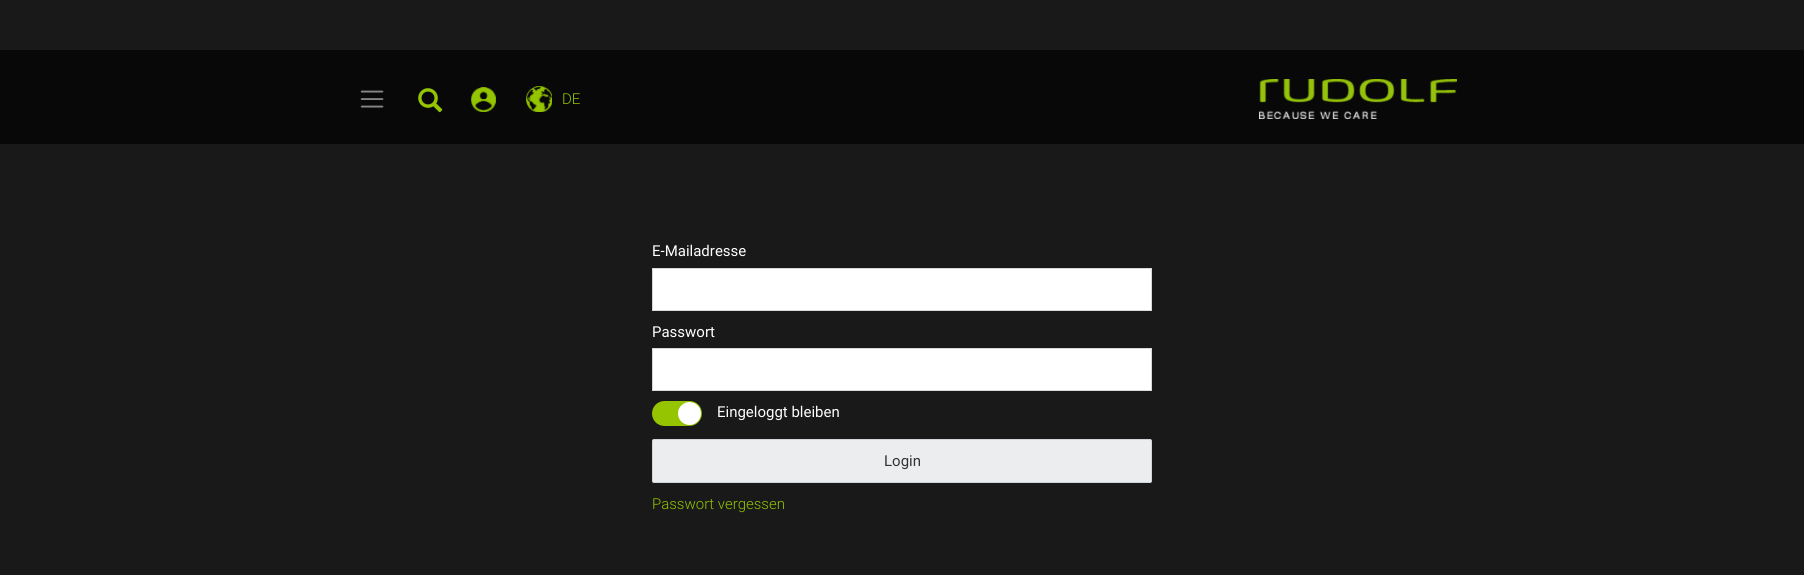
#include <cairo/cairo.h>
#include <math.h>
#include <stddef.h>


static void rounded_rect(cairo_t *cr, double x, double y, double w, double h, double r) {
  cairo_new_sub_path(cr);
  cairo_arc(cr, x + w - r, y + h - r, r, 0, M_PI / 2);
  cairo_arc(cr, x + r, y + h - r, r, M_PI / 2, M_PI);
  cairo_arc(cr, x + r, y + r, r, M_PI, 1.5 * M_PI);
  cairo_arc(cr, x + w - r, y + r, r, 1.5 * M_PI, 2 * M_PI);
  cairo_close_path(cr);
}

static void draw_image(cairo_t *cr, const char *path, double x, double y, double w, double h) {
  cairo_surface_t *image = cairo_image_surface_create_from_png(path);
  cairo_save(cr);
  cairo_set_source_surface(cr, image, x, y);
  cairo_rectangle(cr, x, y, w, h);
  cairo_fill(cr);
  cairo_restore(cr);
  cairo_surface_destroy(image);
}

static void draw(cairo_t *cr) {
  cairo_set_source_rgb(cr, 25 / 255.0, 25 / 255.0, 25 / 255.0);
  cairo_paint(cr);
  cairo_set_source_rgb(cr, 8 / 255.0, 8 / 255.0, 8 / 255.0);
  cairo_rectangle(cr, 0, 50, 1804, 94);
  cairo_fill(cr);
  draw_image(cr, "images/1.png", 360, 90, 24, 18);
  draw_image(cr, "images/2.png", 418, 88, 25, 25);
  draw_image(cr, "images/3.png", 471, 87, 25, 25);
  draw_image(cr, "images/4.png", 526, 86, 26, 26);
  draw_image(cr, "images/5.png", 1259, 79, 198, 40);
  cairo_set_source_rgb(cr, 1, 1, 1);
  cairo_rectangle(cr, 652.5, 268.5, 499, 42);
  cairo_fill_preserve(cr);
  cairo_set_source_rgb(cr, 216 / 255.0, 216 / 255.0, 216 / 255.0);
  cairo_set_line_width(cr, 1);
  cairo_stroke(cr);
  cairo_set_source_rgb(cr, 1, 1, 1);
  cairo_rectangle(cr, 652.5, 348.5, 499, 42);
  cairo_fill_preserve(cr);
  cairo_set_source_rgb(cr, 216 / 255.0, 216 / 255.0, 216 / 255.0);
  cairo_stroke(cr);
  cairo_set_source_rgb(cr, 148 / 255.0, 197 / 255.0, 0);
  rounded_rect(cr, 652, 401, 50, 25, 12.5);
  cairo_fill(cr);
  cairo_set_source_rgba(cr, 0, 0, 0, 0.1);
  cairo_new_path(cr);
  cairo_move_to(cr, 682.5, 422.5);
  cairo_curve_to(cr, 686.5, 428, 695, 428.5, 699.5, 423.5);
  cairo_curve_to(cr, 704.5, 419, 704, 410.5, 698.5, 406.5);
  cairo_curve_to(cr, 706.5, 417, 693, 430.5, 682.5, 422.5);
  cairo_close_path(cr);
  cairo_fill(cr);
  cairo_set_source_rgb(cr, 1, 1, 1);
  cairo_arc(cr, 689.5, 413.5, 11.5, 0, 2 * M_PI);
  cairo_fill(cr);
  cairo_set_source_rgb(cr, 235 / 255.0, 237 / 255.0, 239 / 255.0);
  rounded_rect(cr, 652.5, 439.5, 499, 43, 1.5);
  cairo_fill_preserve(cr);
  cairo_set_source_rgb(cr, 209 / 255.0, 213 / 255.0, 218 / 255.0);
  cairo_stroke(cr);
  cairo_select_font_face(cr, "Roboto Light", CAIRO_FONT_SLANT_NORMAL, CAIRO_FONT_WEIGHT_NORMAL);
  cairo_set_font_size(cr, 15);
  cairo_set_source_rgb(cr, 148 / 255.0, 197 / 255.0, 0);
  cairo_move_to(cr, 562, 104);
  cairo_show_text(cr, "DE");
  cairo_select_font_face(cr, "Roboto", CAIRO_FONT_SLANT_NORMAL, CAIRO_FONT_WEIGHT_NORMAL);
  cairo_set_source_rgb(cr, 1, 1, 1);
  cairo_move_to(cr, 652, 256);
  cairo_show_text(cr, "E-Mailadresse");
  cairo_move_to(cr, 652, 337);
  cairo_show_text(cr, "Passwort");
  cairo_move_to(cr, 717, 417);
  cairo_show_text(cr, "Eingeloggt bleiben");
  cairo_set_source_rgb(cr, 51 / 255.0, 51 / 255.0, 51 / 255.0);
  cairo_move_to(cr, 884, 466);
  cairo_show_text(cr, "Login");
  cairo_select_font_face(cr, "Roboto Light", CAIRO_FONT_SLANT_NORMAL, CAIRO_FONT_WEIGHT_NORMAL);
  cairo_set_source_rgb(cr, 148 / 255.0, 197 / 255.0, 0);
  cairo_move_to(cr, 652, 509);
  cairo_show_text(cr, "Passwort vergessen");
}

int main(void) {
  cairo_surface_t *surface = cairo_image_surface_create(CAIRO_FORMAT_RGB24, 1804, 575);
  cairo_t *cr = cairo_create(surface);
  cairo_font_options_t *options = cairo_font_options_create();
  cairo_font_options_set_hint_metrics(options, CAIRO_HINT_METRICS_OFF);
  cairo_font_options_set_hint_style(options, CAIRO_HINT_STYLE_NONE);
  cairo_set_font_options(cr, options);
  cairo_set_miter_limit(cr, 4);
  draw(cr);
  cairo_surface_write_to_png(surface, "out.png");
  cairo_font_options_destroy(options);
  cairo_destroy(cr);
  cairo_surface_destroy(surface);
  return 0;
}
